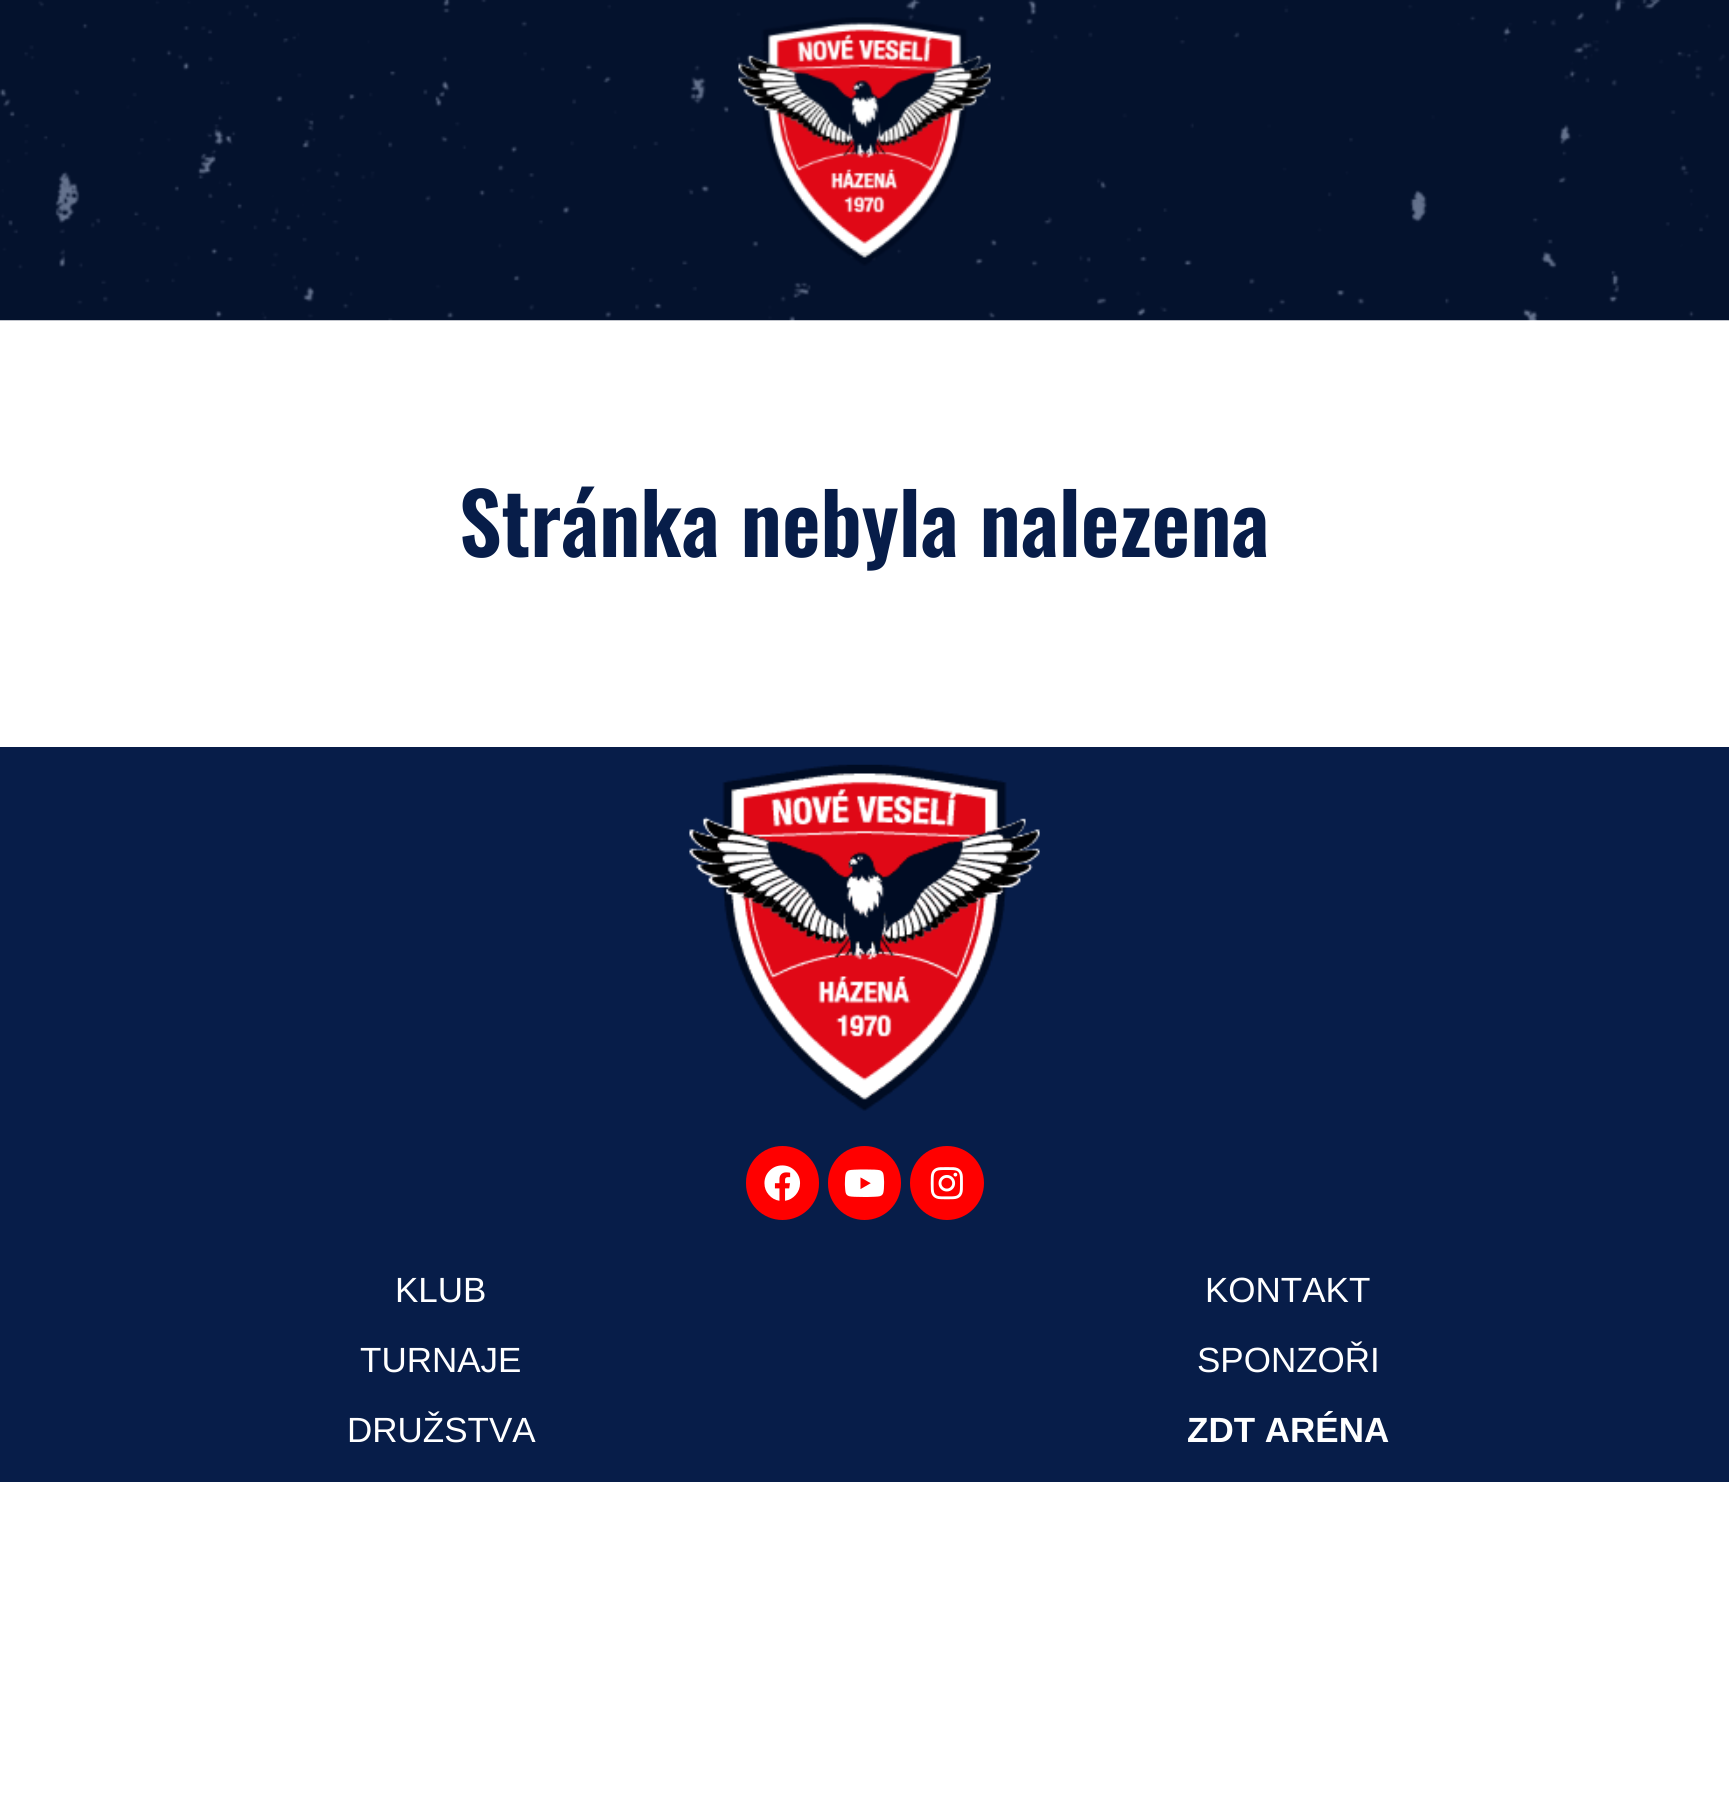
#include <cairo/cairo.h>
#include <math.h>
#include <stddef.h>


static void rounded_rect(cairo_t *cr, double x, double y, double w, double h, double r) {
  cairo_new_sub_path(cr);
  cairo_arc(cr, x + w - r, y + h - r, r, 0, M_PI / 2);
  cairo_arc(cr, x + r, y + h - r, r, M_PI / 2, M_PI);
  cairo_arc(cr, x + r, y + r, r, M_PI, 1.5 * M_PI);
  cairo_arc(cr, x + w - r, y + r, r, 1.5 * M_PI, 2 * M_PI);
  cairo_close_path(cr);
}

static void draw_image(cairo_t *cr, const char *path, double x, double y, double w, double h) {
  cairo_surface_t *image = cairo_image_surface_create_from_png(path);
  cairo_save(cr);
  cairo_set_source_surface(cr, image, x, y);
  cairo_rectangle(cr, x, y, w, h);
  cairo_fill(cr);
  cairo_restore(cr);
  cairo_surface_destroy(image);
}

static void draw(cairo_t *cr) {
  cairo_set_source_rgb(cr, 1, 1, 1);
  cairo_paint(cr);
  draw_image(cr, "images/1.png", 0, 0, 1729, 321);
  draw_image(cr, "images/2.png", 738, 17, 253, 249);
  cairo_set_source_rgba(cr, 0, 0, 0, 0.05);
  cairo_rectangle(cr, 855, 252, 19, 6);
  cairo_fill(cr);
  cairo_set_source_rgb(cr, 7 / 255.0, 29 / 255.0, 73 / 255.0);
  cairo_rectangle(cr, 0, 747, 1729, 735);
  cairo_fill(cr);
  draw_image(cr, "images/3.png", 689, 764, 351, 347);
  cairo_set_source_rgb(cr, 1, 0, 0);
  rounded_rect(cr, 746, 1146, 73, 74, 36.5);
  cairo_fill(cr);
  draw_image(cr, "images/4.png", 764, 1165, 37, 36);
  rounded_rect(cr, 828, 1146, 73, 74, 36.5);
  cairo_fill(cr);
  draw_image(cr, "images/5.png", 844, 1169, 41, 28);
  cairo_arc(cr, 947, 1183, 37, 0, 2 * M_PI);
  cairo_fill(cr);
  draw_image(cr, "images/6.png", 930, 1167, 33, 33);
  cairo_select_font_face(cr, "Oswald SemiBold", CAIRO_FONT_SLANT_NORMAL, CAIRO_FONT_WEIGHT_NORMAL);
  cairo_set_font_size(cr, 84);
  cairo_set_source_rgb(cr, 7 / 255.0, 29 / 255.0, 73 / 255.0);
  cairo_move_to(cr, 459, 557);
  cairo_show_text(cr, "Stránka nebyla nalezena");
  cairo_select_font_face(cr, "Liberation Sans", CAIRO_FONT_SLANT_NORMAL, CAIRO_FONT_WEIGHT_NORMAL);
  cairo_set_font_size(cr, 35);
  cairo_set_source_rgb(cr, 1, 1, 1);
  cairo_move_to(cr, 395, 1302);
  cairo_show_text(cr, "KLUB");
  cairo_move_to(cr, 360, 1372);
  cairo_show_text(cr, "TURNAJE");
  cairo_move_to(cr, 347, 1442);
  cairo_show_text(cr, "DRUŽSTVA");
  cairo_move_to(cr, 1205, 1302);
  cairo_show_text(cr, "KONTAKT");
  cairo_move_to(cr, 1197, 1372);
  cairo_show_text(cr, "SPONZOŘI");
  cairo_select_font_face(cr, "Liberation Sans", CAIRO_FONT_SLANT_NORMAL, CAIRO_FONT_WEIGHT_BOLD);
  cairo_move_to(cr, 1187, 1442);
  cairo_show_text(cr, "ZDT ARÉNA");
}

int main(void) {
  cairo_surface_t *surface = cairo_image_surface_create(CAIRO_FORMAT_RGB24, 1729, 1819);
  cairo_t *cr = cairo_create(surface);
  cairo_font_options_t *options = cairo_font_options_create();
  cairo_font_options_set_hint_metrics(options, CAIRO_HINT_METRICS_OFF);
  cairo_font_options_set_hint_style(options, CAIRO_HINT_STYLE_NONE);
  cairo_set_font_options(cr, options);
  cairo_set_miter_limit(cr, 4);
  draw(cr);
  cairo_surface_write_to_png(surface, "out.png");
  cairo_font_options_destroy(options);
  cairo_destroy(cr);
  cairo_surface_destroy(surface);
  return 0;
}
